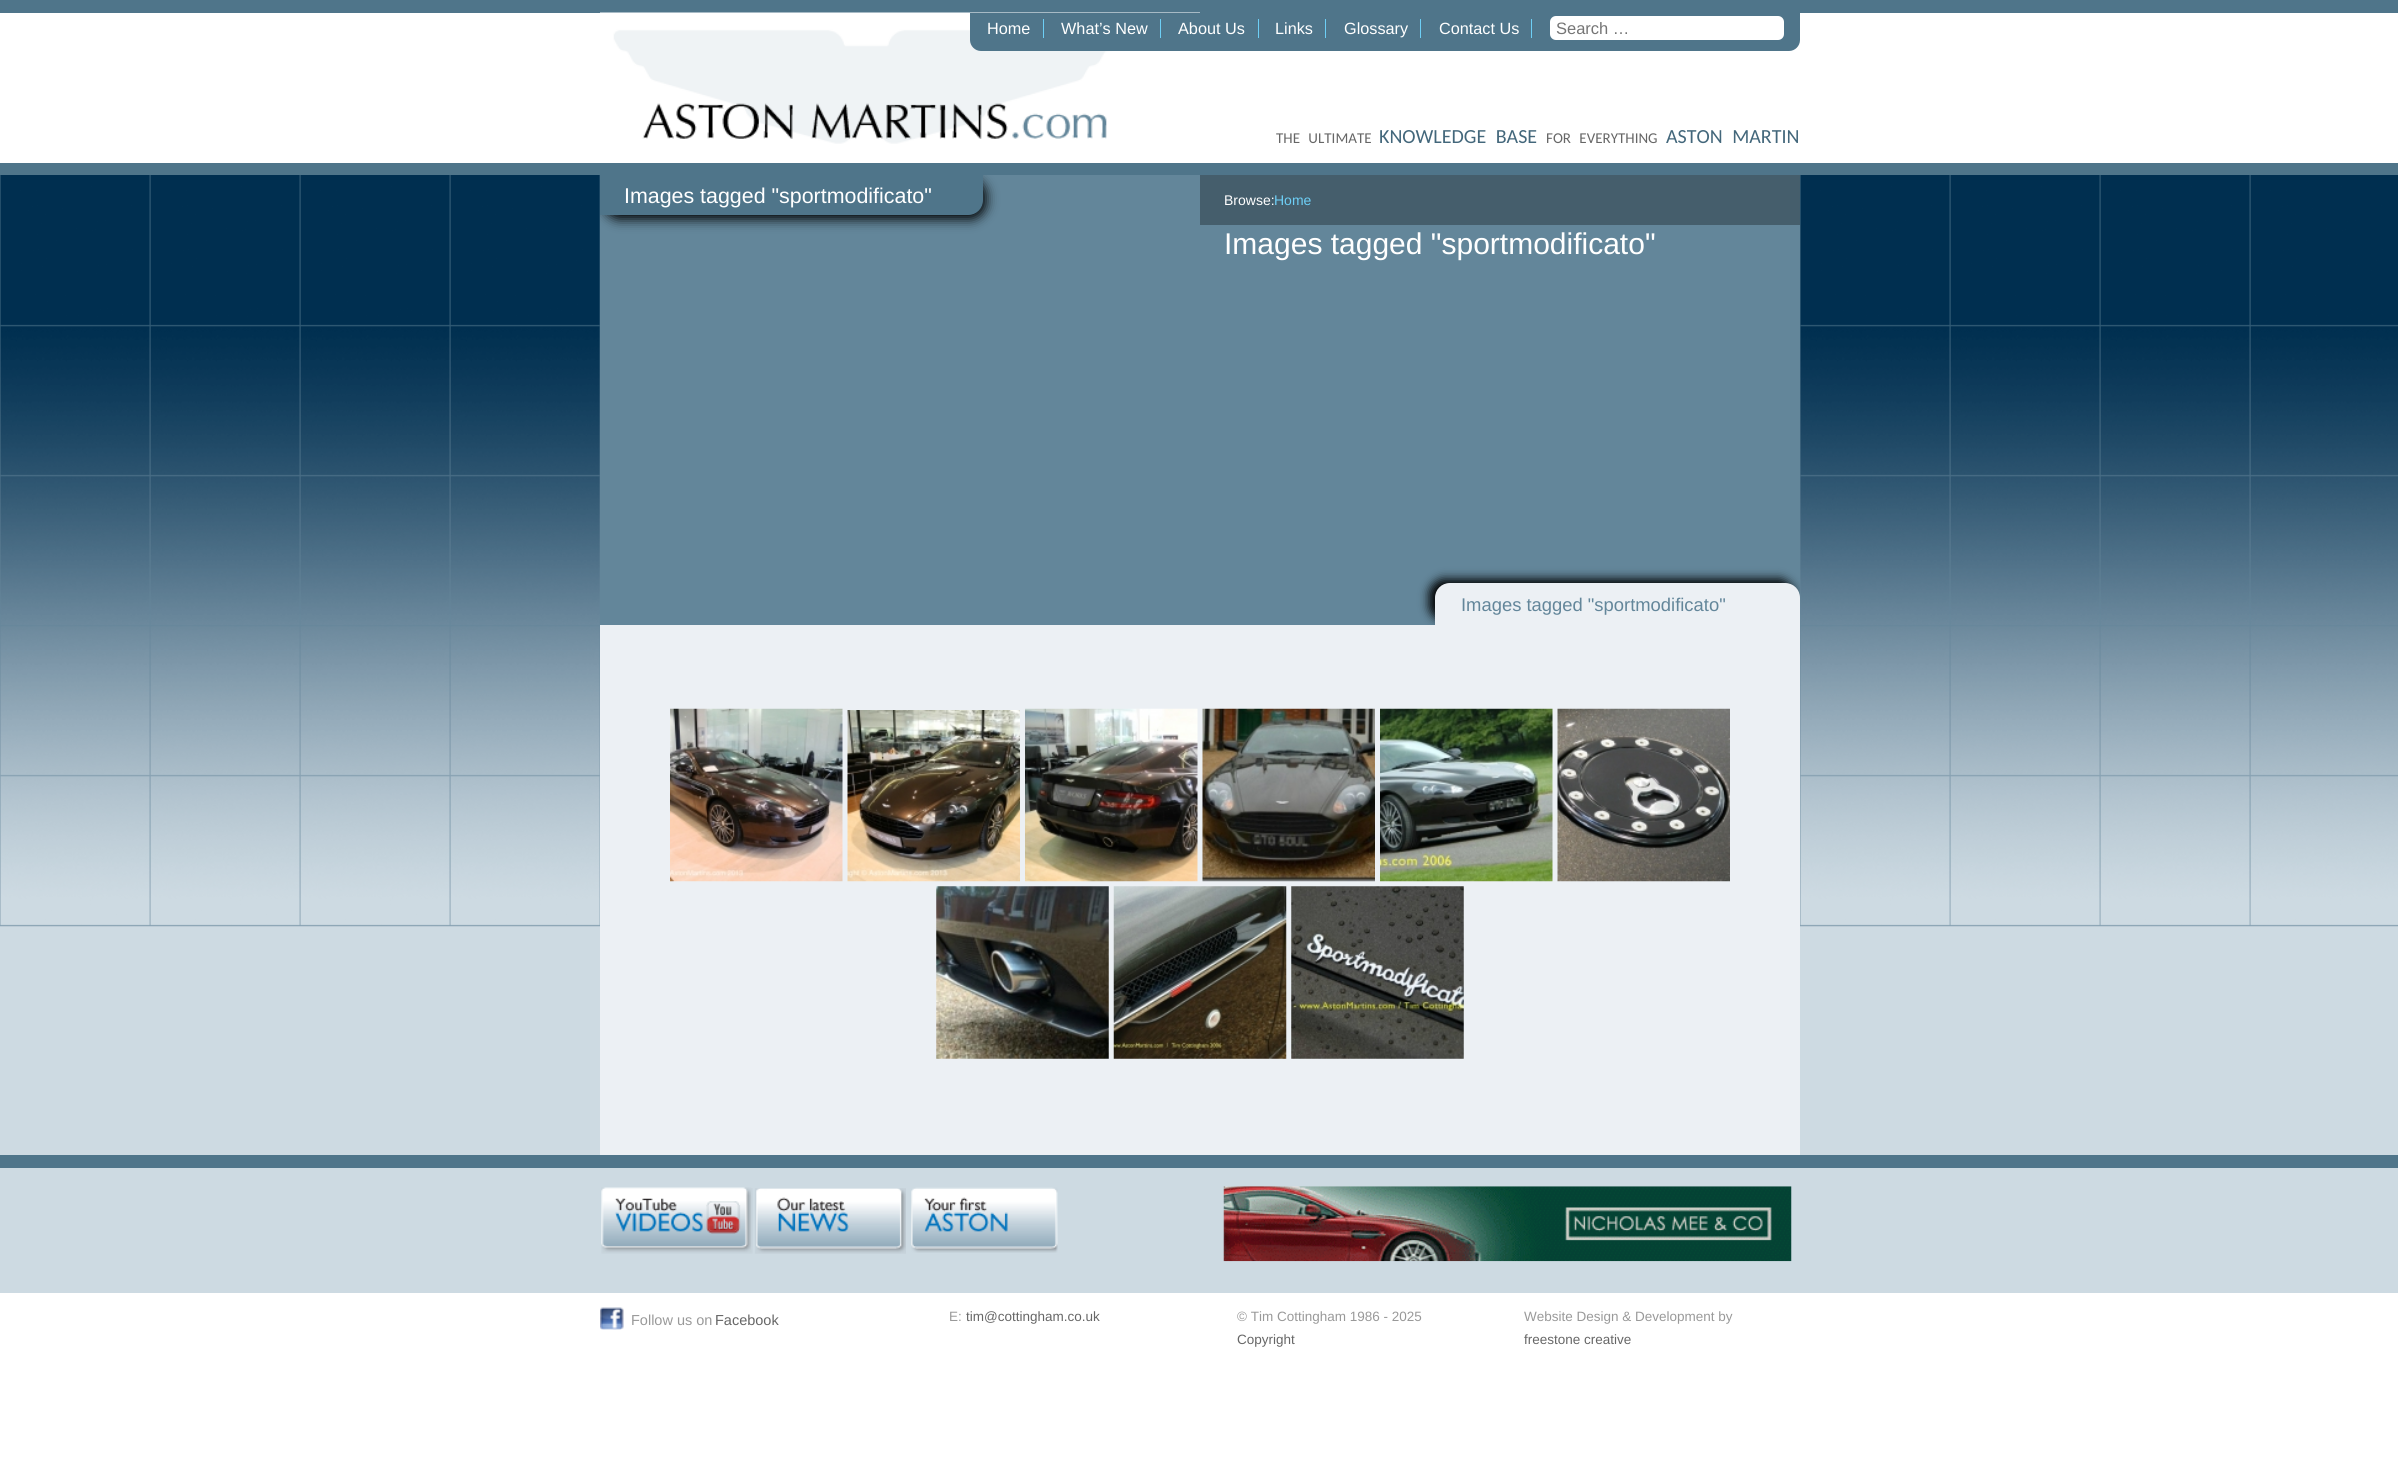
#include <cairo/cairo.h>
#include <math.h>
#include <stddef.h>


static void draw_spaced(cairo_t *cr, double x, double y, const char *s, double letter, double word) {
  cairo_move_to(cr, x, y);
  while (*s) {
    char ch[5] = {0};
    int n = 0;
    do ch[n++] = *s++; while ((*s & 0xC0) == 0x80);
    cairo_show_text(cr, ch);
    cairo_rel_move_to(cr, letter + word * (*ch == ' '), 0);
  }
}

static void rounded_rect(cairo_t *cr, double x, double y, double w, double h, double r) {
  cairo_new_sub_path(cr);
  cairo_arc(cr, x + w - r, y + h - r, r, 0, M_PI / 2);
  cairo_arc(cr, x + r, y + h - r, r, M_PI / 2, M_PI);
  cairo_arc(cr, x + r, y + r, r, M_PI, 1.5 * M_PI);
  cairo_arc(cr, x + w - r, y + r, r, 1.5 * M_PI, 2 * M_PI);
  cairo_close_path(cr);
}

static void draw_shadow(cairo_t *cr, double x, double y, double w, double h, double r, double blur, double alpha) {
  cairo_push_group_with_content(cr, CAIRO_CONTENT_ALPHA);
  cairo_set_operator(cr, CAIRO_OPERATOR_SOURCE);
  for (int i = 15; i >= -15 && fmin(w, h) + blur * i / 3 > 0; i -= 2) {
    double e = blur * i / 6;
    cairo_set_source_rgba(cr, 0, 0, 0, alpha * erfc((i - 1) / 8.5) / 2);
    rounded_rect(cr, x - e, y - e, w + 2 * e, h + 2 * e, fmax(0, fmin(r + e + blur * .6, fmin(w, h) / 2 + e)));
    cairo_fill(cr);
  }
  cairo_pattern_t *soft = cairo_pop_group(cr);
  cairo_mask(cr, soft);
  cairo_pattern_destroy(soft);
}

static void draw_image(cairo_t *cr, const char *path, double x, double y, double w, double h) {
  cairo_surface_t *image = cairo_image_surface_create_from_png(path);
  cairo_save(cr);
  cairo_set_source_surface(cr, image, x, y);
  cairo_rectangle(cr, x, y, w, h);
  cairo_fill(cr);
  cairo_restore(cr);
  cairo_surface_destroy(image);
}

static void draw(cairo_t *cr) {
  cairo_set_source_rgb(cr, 1, 1, 1);
  cairo_paint(cr);
  cairo_set_source_rgb(cr, 79 / 255.0, 117 / 255.0, 138 / 255.0);
  cairo_rectangle(cr, 0, 0, 2398, 13);
  cairo_fill(cr);
  draw_image(cr, "images/1.png", 600, 12, 600, 132);
  cairo_new_path(cr);
  cairo_move_to(cr, 970, 13);
  cairo_line_to(cr, 1800, 13);
  cairo_line_to(cr, 1800, 40);
  cairo_curve_to(cr, 1800, 46, 1795, 51, 1789, 51);
  cairo_line_to(cr, 981, 51);
  cairo_curve_to(cr, 975, 51, 970, 46, 970, 40);
  cairo_close_path(cr);
  cairo_fill(cr);
  cairo_set_source_rgb(cr, 109 / 255.0, 207 / 255.0, 246 / 255.0);
  cairo_rectangle(cr, 1043, 19, 1, 19);
  cairo_fill(cr);
  cairo_rectangle(cr, 1160, 19, 1, 19);
  cairo_fill(cr);
  cairo_rectangle(cr, 1258, 19, 1, 19);
  cairo_fill(cr);
  cairo_rectangle(cr, 1325, 19, 1, 19);
  cairo_fill(cr);
  cairo_rectangle(cr, 1420, 19, 1, 19);
  cairo_fill(cr);
  cairo_rectangle(cr, 1531, 19, 1, 19);
  cairo_fill(cr);
  cairo_set_source_rgb(cr, 1, 1, 1);
  rounded_rect(cr, 1550, 16, 234, 24, 6);
  cairo_fill(cr);
  cairo_set_source_rgb(cr, 205 / 255.0, 218 / 255.0, 226 / 255.0);
  cairo_rectangle(cr, 0, 926, 2398, 229);
  cairo_fill(cr);
  draw_image(cr, "images/2.png", 0, 175, 2398, 752);
  cairo_set_source_rgb(cr, 79 / 255.0, 117 / 255.0, 138 / 255.0);
  cairo_rectangle(cr, 0, 163, 2398, 12);
  cairo_fill(cr);
  cairo_rectangle(cr, 0, 1155, 2398, 13);
  cairo_fill(cr);
  cairo_set_source_rgb(cr, 99 / 255.0, 134 / 255.0, 154 / 255.0);
  cairo_rectangle(cr, 600, 175, 1200, 450);
  cairo_fill(cr);
  cairo_save(cr);
  cairo_rectangle(cr, 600, 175, 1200, 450);
  cairo_clip(cr);
  cairo_set_source_rgb(cr, 0, 0, 0);
  draw_shadow(cr, 604, 179, 382, 40, 15, 6, 1);
  cairo_restore(cr);
  cairo_set_source_rgb(cr, 79 / 255.0, 117 / 255.0, 138 / 255.0);
  cairo_new_path(cr);
  cairo_move_to(cr, 600, 175);
  cairo_line_to(cr, 983, 175);
  cairo_line_to(cr, 983, 200);
  cairo_curve_to(cr, 983, 208.5, 976.5, 215, 968, 215);
  cairo_line_to(cr, 600, 215);
  cairo_close_path(cr);
  cairo_fill(cr);
  cairo_set_source_rgb(cr, 69 / 255.0, 94 / 255.0, 108 / 255.0);
  cairo_rectangle(cr, 1200, 175, 600, 50);
  cairo_fill(cr);
  cairo_save(cr);
  cairo_rectangle(cr, 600, 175, 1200, 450);
  cairo_clip(cr);
  cairo_set_source_rgb(cr, 0, 0, 0);
  draw_shadow(cr, 1429, 579, 365, 42, 15, 5, 1);
  cairo_restore(cr);
  cairo_set_source_rgb(cr, 236 / 255.0, 240 / 255.0, 244 / 255.0);
  cairo_new_path(cr);
  cairo_move_to(cr, 1450, 583);
  cairo_line_to(cr, 1785, 583);
  cairo_curve_to(cr, 1793.5, 583, 1800, 589.5, 1800, 598);
  cairo_line_to(cr, 1800, 625);
  cairo_line_to(cr, 1435, 625);
  cairo_line_to(cr, 1435, 598);
  cairo_curve_to(cr, 1435, 589.5, 1441.5, 583, 1450, 583);
  cairo_close_path(cr);
  cairo_fill(cr);
  cairo_rectangle(cr, 600, 625, 1200, 530);
  cairo_fill(cr);
  draw_image(cr, "images/3.png", 670, 708, 173, 174);
  draw_image(cr, "images/4.png", 847, 710, 173, 172);
  draw_image(cr, "images/5.png", 1025, 708, 173, 174);
  draw_image(cr, "images/6.png", 1202, 708, 173, 174);
  draw_image(cr, "images/7.png", 1380, 708, 173, 174);
  draw_image(cr, "images/8.png", 1557, 708, 173, 174);
  draw_image(cr, "images/9.png", 936, 886, 173, 173);
  draw_image(cr, "images/10.png", 1113, 886, 174, 173);
  draw_image(cr, "images/11.png", 1291, 886, 173, 173);
  cairo_set_source_rgb(cr, 205 / 255.0, 218 / 255.0, 226 / 255.0);
  cairo_rectangle(cr, 0, 1168, 2398, 125);
  cairo_fill(cr);
  draw_image(cr, "images/12.png", 601, 1187, 151, 67);
  draw_image(cr, "images/13.png", 751, 1188, 155, 66);
  draw_image(cr, "images/14.png", 911, 1187, 147, 66);
  draw_image(cr, "images/15.png", 1223, 1186, 569, 76);
  draw_image(cr, "images/16.png", 600, 1307, 24, 23);
  cairo_select_font_face(cr, "Liberation Sans", CAIRO_FONT_SLANT_NORMAL, CAIRO_FONT_WEIGHT_NORMAL);
  cairo_set_font_size(cr, 16.25);
  cairo_set_source_rgb(cr, 1, 1, 1);
  cairo_move_to(cr, 987, 34);
  cairo_show_text(cr, "Home");
  cairo_move_to(cr, 1061, 34);
  cairo_show_text(cr, "What’s New");
  cairo_move_to(cr, 1178, 34);
  cairo_show_text(cr, "About Us");
  cairo_move_to(cr, 1275, 34);
  cairo_show_text(cr, "Links");
  cairo_move_to(cr, 1344, 34);
  cairo_show_text(cr, "Glossary");
  cairo_move_to(cr, 1439, 34);
  cairo_show_text(cr, "Contact Us");
  cairo_set_font_size(cr, 16.5);
  cairo_set_source_rgb(cr, 117 / 255.0, 117 / 255.0, 117 / 255.0);
  cairo_move_to(cr, 1556, 34);
  cairo_show_text(cr, "Search …");
  cairo_select_font_face(cr, "Carlito", CAIRO_FONT_SLANT_NORMAL, CAIRO_FONT_WEIGHT_NORMAL);
  cairo_set_font_size(cr, 15);
  cairo_set_source_rgb(cr, 102 / 255.0, 102 / 255.0, 102 / 255.0);
  draw_spaced(cr, 1276, 143, "THE ULTIMATE", 0, 5);
  cairo_set_font_size(cr, 20);
  cairo_set_source_rgb(cr, 67 / 255.0, 103 / 255.0, 123 / 255.0);
  draw_spaced(cr, 1379, 143, "KNOWLEDGE BASE", 0, 5);
  cairo_set_font_size(cr, 15);
  cairo_set_source_rgb(cr, 102 / 255.0, 102 / 255.0, 102 / 255.0);
  draw_spaced(cr, 1546, 143, "FOR EVERYTHING", 0, 5);
  cairo_set_font_size(cr, 20);
  cairo_set_source_rgb(cr, 67 / 255.0, 103 / 255.0, 123 / 255.0);
  draw_spaced(cr, 1666, 143, "ASTON MARTIN", 0, 5);
  cairo_select_font_face(cr, "Liberation Sans", CAIRO_FONT_SLANT_NORMAL, CAIRO_FONT_WEIGHT_NORMAL);
  cairo_set_font_size(cr, 21.4);
  cairo_set_source_rgb(cr, 1, 1, 1);
  cairo_move_to(cr, 624, 203);
  cairo_show_text(cr, "Images tagged \"sportmodificato\"");
  cairo_set_font_size(cr, 14);
  cairo_move_to(cr, 1224, 205);
  cairo_show_text(cr, "Browse:");
  cairo_set_source_rgb(cr, 109 / 255.0, 207 / 255.0, 246 / 255.0);
  cairo_move_to(cr, 1274, 205);
  cairo_show_text(cr, "Home");
  cairo_set_font_size(cr, 30);
  cairo_set_source_rgb(cr, 1, 1, 1);
  cairo_move_to(cr, 1224, 254);
  cairo_show_text(cr, "Images tagged \"sportmodificato\"");
  cairo_set_font_size(cr, 18.4);
  cairo_set_source_rgb(cr, 99 / 255.0, 134 / 255.0, 154 / 255.0);
  cairo_move_to(cr, 1461, 611);
  cairo_show_text(cr, "Images tagged \"sportmodificato\"");
  cairo_set_font_size(cr, 14.5);
  cairo_set_source_rgb(cr, 153 / 255.0, 153 / 255.0, 153 / 255.0);
  cairo_move_to(cr, 631, 1325);
  cairo_show_text(cr, "Follow us on");
  cairo_set_source_rgb(cr, 102 / 255.0, 102 / 255.0, 102 / 255.0);
  cairo_move_to(cr, 715, 1325);
  cairo_show_text(cr, "Facebook");
  cairo_set_font_size(cr, 13.5);
  cairo_set_source_rgb(cr, 153 / 255.0, 153 / 255.0, 153 / 255.0);
  cairo_move_to(cr, 949, 1321);
  cairo_show_text(cr, "E:");
  cairo_set_source_rgb(cr, 102 / 255.0, 102 / 255.0, 102 / 255.0);
  cairo_move_to(cr, 966, 1321);
  cairo_show_text(cr, "tim@cottingham.co.uk");
  cairo_set_source_rgb(cr, 153 / 255.0, 153 / 255.0, 153 / 255.0);
  cairo_move_to(cr, 1237, 1321);
  cairo_show_text(cr, "© Tim Cottingham 1986 - 2025");
  cairo_set_source_rgb(cr, 102 / 255.0, 102 / 255.0, 102 / 255.0);
  cairo_move_to(cr, 1237, 1344);
  cairo_show_text(cr, "Copyright");
  cairo_set_source_rgb(cr, 153 / 255.0, 153 / 255.0, 153 / 255.0);
  cairo_move_to(cr, 1524, 1321);
  cairo_show_text(cr, "Website Design & Development by");
  cairo_set_source_rgb(cr, 102 / 255.0, 102 / 255.0, 102 / 255.0);
  cairo_move_to(cr, 1524, 1344);
  cairo_show_text(cr, "freestone creative");
}

int main(void) {
  cairo_surface_t *surface = cairo_image_surface_create(CAIRO_FORMAT_RGB24, 2398, 1472);
  cairo_t *cr = cairo_create(surface);
  cairo_font_options_t *options = cairo_font_options_create();
  cairo_font_options_set_hint_metrics(options, CAIRO_HINT_METRICS_OFF);
  cairo_font_options_set_hint_style(options, CAIRO_HINT_STYLE_NONE);
  cairo_set_font_options(cr, options);
  cairo_set_miter_limit(cr, 4);
  draw(cr);
  cairo_surface_write_to_png(surface, "out.png");
  cairo_font_options_destroy(options);
  cairo_destroy(cr);
  cairo_surface_destroy(surface);
  return 0;
}
